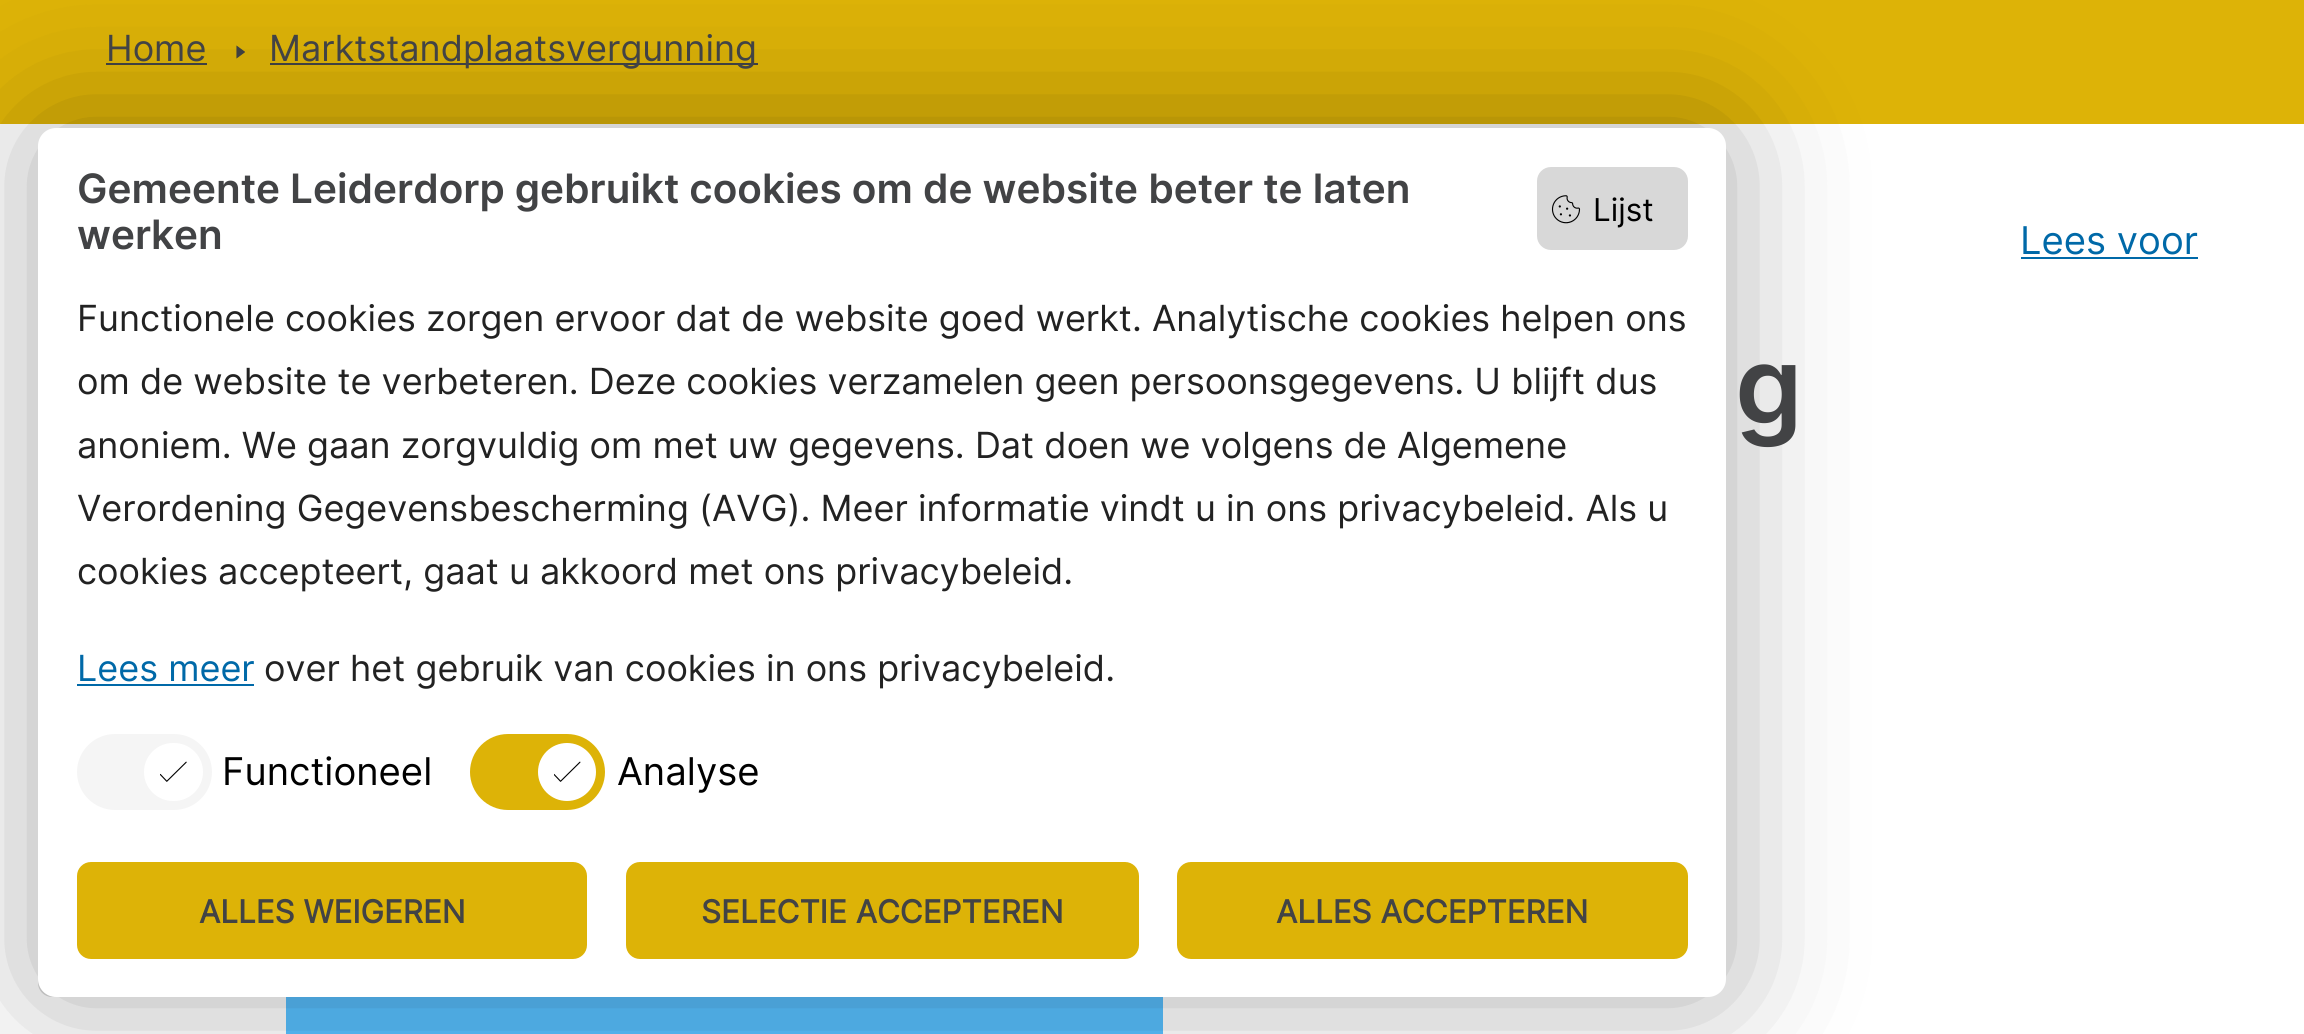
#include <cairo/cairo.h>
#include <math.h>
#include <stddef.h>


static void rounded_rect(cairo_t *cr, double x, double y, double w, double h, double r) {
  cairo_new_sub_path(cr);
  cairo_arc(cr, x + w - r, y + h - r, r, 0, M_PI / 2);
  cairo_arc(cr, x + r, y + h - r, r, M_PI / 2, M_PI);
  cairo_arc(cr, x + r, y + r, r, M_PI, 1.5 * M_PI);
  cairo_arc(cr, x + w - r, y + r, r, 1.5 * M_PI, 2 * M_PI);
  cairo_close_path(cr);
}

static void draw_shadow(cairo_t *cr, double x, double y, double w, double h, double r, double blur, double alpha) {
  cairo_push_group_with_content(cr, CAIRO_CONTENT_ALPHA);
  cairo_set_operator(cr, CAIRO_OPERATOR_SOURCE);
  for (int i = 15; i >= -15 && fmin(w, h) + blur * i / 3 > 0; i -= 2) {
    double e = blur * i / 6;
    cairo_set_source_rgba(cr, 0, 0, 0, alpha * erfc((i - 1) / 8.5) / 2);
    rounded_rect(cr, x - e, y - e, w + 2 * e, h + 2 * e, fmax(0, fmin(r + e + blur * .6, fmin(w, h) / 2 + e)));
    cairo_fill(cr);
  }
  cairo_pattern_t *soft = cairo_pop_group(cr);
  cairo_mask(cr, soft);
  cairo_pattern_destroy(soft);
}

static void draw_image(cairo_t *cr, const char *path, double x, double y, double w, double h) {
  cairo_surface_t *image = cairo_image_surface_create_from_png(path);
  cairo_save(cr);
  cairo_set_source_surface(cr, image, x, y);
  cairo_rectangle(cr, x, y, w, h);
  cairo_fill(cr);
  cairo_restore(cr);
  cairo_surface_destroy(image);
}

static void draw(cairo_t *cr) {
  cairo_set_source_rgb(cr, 1, 1, 1);
  cairo_paint(cr);
  cairo_set_source_rgb(cr, 221 / 255.0, 179 / 255.0, 7 / 255.0);
  cairo_rectangle(cr, 0, 0, 2304, 124);
  cairo_fill(cr);
  cairo_set_source_rgb(cr, 66 / 255.0, 67 / 255.0, 69 / 255.0);
  cairo_rectangle(cr, 106, 63, 101, 2);
  cairo_fill(cr);
  draw_image(cr, "images/1.png", 236, 45, 9, 14);
  cairo_rectangle(cr, 270, 63, 488, 2);
  cairo_fill(cr);
  cairo_set_source_rgb(cr, 88 / 255.0, 192 / 255.0, 1);
  cairo_rectangle(cr, 295, 997, 859, 37);
  cairo_fill(cr);
  cairo_rectangle(cr, 290.5, 886.5, 868, 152);
  cairo_set_line_width(cr, 9);
  cairo_stroke(cr);
  rounded_rect(cr, 39, 939, 111, 57, 13);
  cairo_set_source_rgb(cr, 216 / 255.0, 216 / 255.0, 216 / 255.0);
  cairo_set_line_width(cr, 2);
  cairo_stroke(cr);
  cairo_set_source_rgb(cr, 0, 0, 0);
  draw_shadow(cr, 38, 128, 1688, 869, 18, 67.5, 0.33);
  cairo_set_source_rgb(cr, 1, 1, 1);
  rounded_rect(cr, 38, 128, 1688, 869, 18);
  cairo_fill(cr);
  cairo_set_source_rgb(cr, 216 / 255.0, 216 / 255.0, 216 / 255.0);
  rounded_rect(cr, 1537, 167, 151, 83, 14);
  cairo_fill(cr);
  draw_image(cr, "images/2.png", 1551, 195, 30, 29);
  cairo_set_source_rgb(cr, 0, 105 / 255.0, 168 / 255.0);
  cairo_rectangle(cr, 77, 684, 177, 2);
  cairo_fill(cr);
  cairo_set_source_rgb(cr, 245 / 255.0, 245 / 255.0, 245 / 255.0);
  rounded_rect(cr, 77, 734, 135, 76, 38);
  cairo_fill(cr);
  cairo_set_source_rgb(cr, 1, 1, 1);
  rounded_rect(cr, 144, 743, 59, 58, 29);
  cairo_fill(cr);
  draw_image(cr, "images/3.png", 160, 761, 27, 21);
  cairo_set_source_rgb(cr, 221 / 255.0, 179 / 255.0, 7 / 255.0);
  rounded_rect(cr, 470, 734, 135, 76, 38);
  cairo_fill(cr);
  cairo_set_source_rgb(cr, 1, 1, 1);
  cairo_arc(cr, 567, 772, 29, 0, 2 * M_PI);
  cairo_fill(cr);
  draw_image(cr, "images/4.png", 554, 761, 27, 21);
  cairo_set_source_rgb(cr, 221 / 255.0, 179 / 255.0, 7 / 255.0);
  rounded_rect(cr, 77, 862, 510, 97, 14);
  cairo_fill(cr);
  rounded_rect(cr, 626, 862, 513, 97, 14);
  cairo_fill(cr);
  rounded_rect(cr, 1177, 862, 511, 97, 14);
  cairo_fill(cr);
  cairo_set_source_rgb(cr, 0, 105 / 255.0, 168 / 255.0);
  cairo_rectangle(cr, 2021, 257, 177, 2);
  cairo_fill(cr);
  cairo_select_font_face(cr, "Inter", CAIRO_FONT_SLANT_NORMAL, CAIRO_FONT_WEIGHT_NORMAL);
  cairo_set_font_size(cr, 36);
  cairo_set_source_rgb(cr, 66 / 255.0, 67 / 255.0, 69 / 255.0);
  cairo_move_to(cr, 106, 61);
  cairo_show_text(cr, "Home");
  cairo_move_to(cr, 269, 61);
  cairo_show_text(cr, "Marktstandplaatsvergunning");
  cairo_select_font_face(cr, "Inter SemiBold", CAIRO_FONT_SLANT_NORMAL, CAIRO_FONT_WEIGHT_NORMAL);
  cairo_set_font_size(cr, 40.5);
  cairo_move_to(cr, 77, 203);
  cairo_show_text(cr, "Gemeente Leiderdorp gebruikt cookies om de website beter te laten");
  cairo_move_to(cr, 77, 249);
  cairo_show_text(cr, "werken");
  cairo_select_font_face(cr, "Inter", CAIRO_FONT_SLANT_NORMAL, CAIRO_FONT_WEIGHT_NORMAL);
  cairo_set_font_size(cr, 31.5);
  cairo_set_source_rgb(cr, 0, 0, 0);
  cairo_move_to(cr, 1593, 221);
  cairo_show_text(cr, "Lijst");
  cairo_set_font_size(cr, 36);
  cairo_set_source_rgb(cr, 34 / 255.0, 34 / 255.0, 34 / 255.0);
  cairo_move_to(cr, 77, 331);
  cairo_show_text(cr, "Functionele cookies zorgen ervoor dat de website goed werkt. Analytische cookies helpen ons");
  cairo_move_to(cr, 77, 394);
  cairo_show_text(cr, "om de website te verbeteren. Deze cookies verzamelen geen persoonsgegevens. U blijft dus");
  cairo_move_to(cr, 77, 458);
  cairo_show_text(cr, "anoniem. We gaan zorgvuldig om met uw gegevens. Dat doen we volgens de Algemene");
  cairo_move_to(cr, 77, 521);
  cairo_show_text(cr, "Verordening Gegevensbescherming (AVG). Meer informatie vindt u in ons privacybeleid. Als u");
  cairo_move_to(cr, 77, 584);
  cairo_show_text(cr, "cookies accepteert, gaat u akkoord met ons privacybeleid.");
  cairo_set_source_rgb(cr, 0, 105 / 255.0, 168 / 255.0);
  cairo_move_to(cr, 77, 681);
  cairo_show_text(cr, "Lees meer");
  cairo_set_source_rgb(cr, 34 / 255.0, 34 / 255.0, 34 / 255.0);
  cairo_move_to(cr, 264, 681);
  cairo_show_text(cr, "over het gebruik van cookies in ons privacybeleid.");
  cairo_set_font_size(cr, 38.25);
  cairo_set_source_rgb(cr, 0, 0, 0);
  cairo_move_to(cr, 222, 785);
  cairo_show_text(cr, "Functioneel");
  cairo_move_to(cr, 617, 785);
  cairo_show_text(cr, "Analyse");
  cairo_select_font_face(cr, "Inter", CAIRO_FONT_SLANT_NORMAL, CAIRO_FONT_WEIGHT_BOLD);
  cairo_set_font_size(cr, 31.5);
  cairo_set_source_rgb(cr, 66 / 255.0, 67 / 255.0, 69 / 255.0);
  cairo_move_to(cr, 199, 923);
  cairo_show_text(cr, "ALLES WEIGEREN");
  cairo_move_to(cr, 701, 923);
  cairo_show_text(cr, "SELECTIE ACCEPTEREN");
  cairo_move_to(cr, 1276, 923);
  cairo_show_text(cr, "ALLES ACCEPTEREN");
  cairo_select_font_face(cr, "Inter", CAIRO_FONT_SLANT_NORMAL, CAIRO_FONT_WEIGHT_NORMAL);
  cairo_set_font_size(cr, 38.25);
  cairo_set_source_rgb(cr, 0, 105 / 255.0, 168 / 255.0);
  cairo_move_to(cr, 2020, 254);
  cairo_show_text(cr, "Lees voor");
  cairo_select_font_face(cr, "Inter SemiBold", CAIRO_FONT_SLANT_NORMAL, CAIRO_FONT_WEIGHT_NORMAL);
  cairo_set_font_size(cr, 108);
  cairo_set_source_rgb(cr, 66 / 255.0, 67 / 255.0, 69 / 255.0);
  cairo_move_to(cr, 1735, 424);
  cairo_show_text(cr, "g");
}

int main(void) {
  cairo_surface_t *surface = cairo_image_surface_create(CAIRO_FORMAT_RGB24, 2304, 1034);
  cairo_t *cr = cairo_create(surface);
  cairo_font_options_t *options = cairo_font_options_create();
  cairo_font_options_set_hint_metrics(options, CAIRO_HINT_METRICS_OFF);
  cairo_font_options_set_hint_style(options, CAIRO_HINT_STYLE_NONE);
  cairo_set_font_options(cr, options);
  cairo_set_miter_limit(cr, 4);
  draw(cr);
  cairo_surface_write_to_png(surface, "out.png");
  cairo_font_options_destroy(options);
  cairo_destroy(cr);
  cairo_surface_destroy(surface);
  return 0;
}
